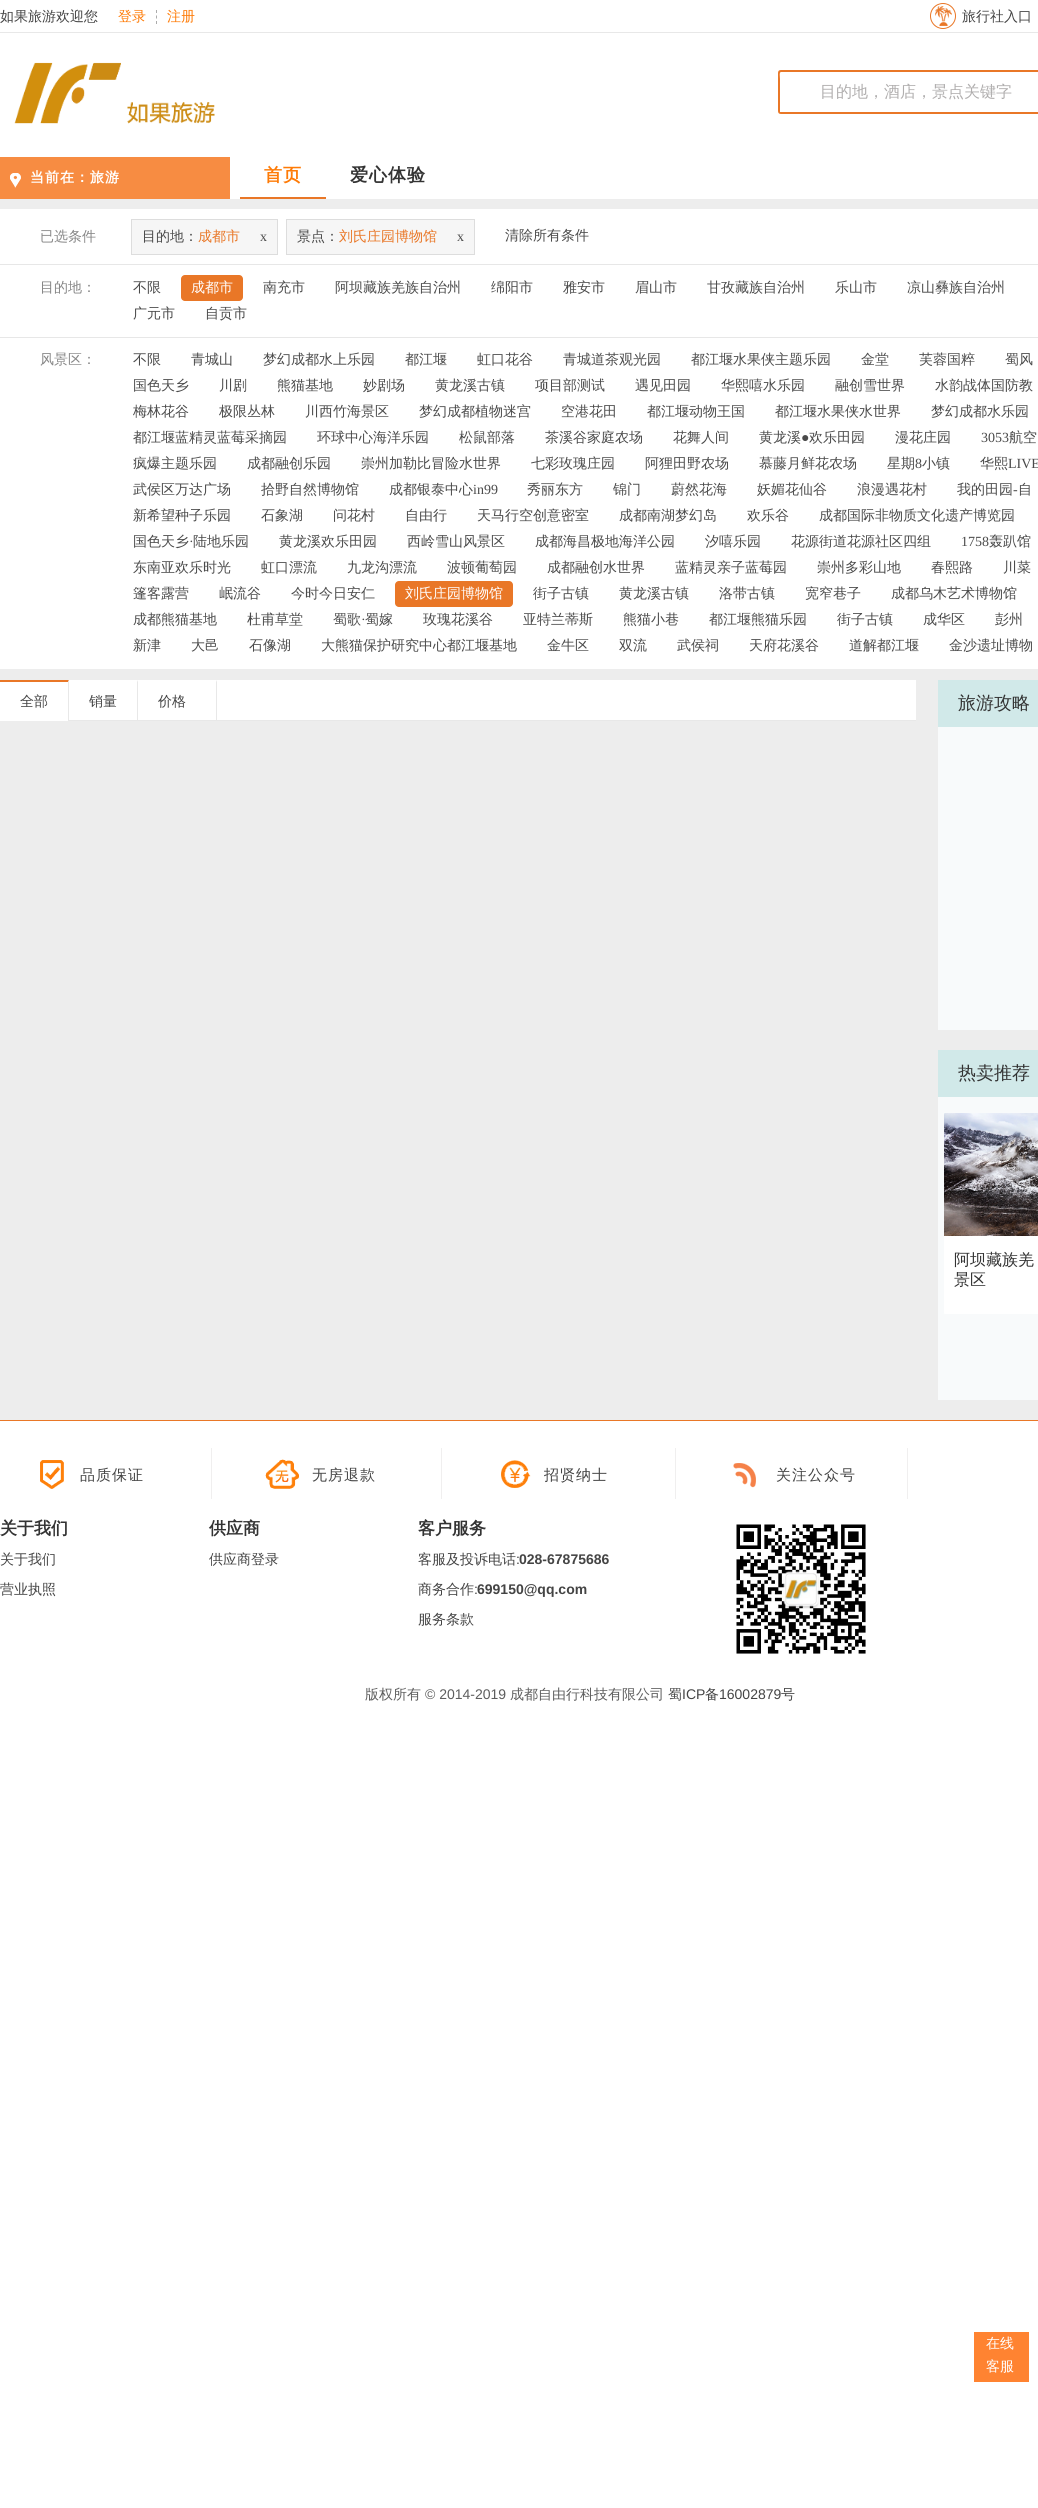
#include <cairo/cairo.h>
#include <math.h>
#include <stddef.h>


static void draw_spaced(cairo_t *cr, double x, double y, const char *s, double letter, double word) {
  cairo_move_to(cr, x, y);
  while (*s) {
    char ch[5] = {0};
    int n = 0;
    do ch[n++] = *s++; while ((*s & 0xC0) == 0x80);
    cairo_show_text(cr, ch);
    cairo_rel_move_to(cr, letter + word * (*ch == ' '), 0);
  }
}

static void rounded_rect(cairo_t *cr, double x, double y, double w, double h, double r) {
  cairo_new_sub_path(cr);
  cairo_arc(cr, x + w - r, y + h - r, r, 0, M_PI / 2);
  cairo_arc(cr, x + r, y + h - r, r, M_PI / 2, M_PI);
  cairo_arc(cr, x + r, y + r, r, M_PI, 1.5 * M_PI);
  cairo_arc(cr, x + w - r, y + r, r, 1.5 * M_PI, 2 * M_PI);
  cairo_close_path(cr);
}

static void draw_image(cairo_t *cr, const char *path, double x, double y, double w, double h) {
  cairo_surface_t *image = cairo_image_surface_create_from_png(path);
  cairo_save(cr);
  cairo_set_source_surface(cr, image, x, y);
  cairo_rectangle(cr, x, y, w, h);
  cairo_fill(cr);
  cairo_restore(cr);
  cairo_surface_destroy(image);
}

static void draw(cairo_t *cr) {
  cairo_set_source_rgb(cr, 1, 1, 1);
  cairo_paint(cr);
  cairo_set_source_rgb(cr, 237 / 255.0, 237 / 255.0, 237 / 255.0);
  cairo_rectangle(cr, 0, 199, 1038, 1221);
  cairo_fill(cr);
  cairo_set_source_rgb(cr, 232 / 255.0, 232 / 255.0, 232 / 255.0);
  cairo_rectangle(cr, 0, 32, 1038, 1);
  cairo_fill(cr);
  cairo_new_path(cr);
  cairo_move_to(cr, 156.5, 10);
  cairo_line_to(cr, 156.5, 13);
  cairo_move_to(cr, 156.5, 15.5);
  cairo_line_to(cr, 156.5, 18.5);
  cairo_move_to(cr, 156.5, 21);
  cairo_line_to(cr, 156.5, 24);
  cairo_set_source_rgb(cr, 172 / 255.0, 172 / 255.0, 172 / 255.0);
  cairo_set_line_width(cr, 1);
  cairo_stroke(cr);
  draw_image(cr, "images/1.png", 930, 3, 26, 26);
  draw_image(cr, "images/2.png", 14, 62, 201, 62);
  cairo_set_source_rgb(cr, 233 / 255.0, 119 / 255.0, 39 / 255.0);
  cairo_set_fill_rule(cr, CAIRO_FILL_RULE_EVEN_ODD);
  cairo_new_path(cr);
  cairo_move_to(cr, 781, 70);
  cairo_line_to(cr, 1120, 70);
  cairo_line_to(cr, 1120, 114);
  cairo_line_to(cr, 781, 114);
  cairo_curve_to(cr, 779, 114, 778, 113, 778, 111);
  cairo_line_to(cr, 778, 73);
  cairo_curve_to(cr, 778, 71, 779, 70, 781, 70);
  cairo_close_path(cr);
  cairo_move_to(cr, 781, 72);
  cairo_line_to(cr, 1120, 72);
  cairo_line_to(cr, 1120, 112);
  cairo_line_to(cr, 781, 112);
  cairo_line_to(cr, 780, 112);
  cairo_line_to(cr, 780, 79);
  cairo_curve_to(cr, 780, 77, 779, 72, 781, 72);
  cairo_close_path(cr);
  cairo_fill(cr);
  cairo_set_source_rgb(cr, 247 / 255.0, 140 / 255.0, 66 / 255.0);
  cairo_rectangle(cr, 0, 157, 230, 42);
  cairo_fill(cr);
  draw_image(cr, "images/3.png", 10, 173, 11, 15);
  cairo_set_source_rgb(cr, 233 / 255.0, 119 / 255.0, 39 / 255.0);
  cairo_rectangle(cr, 240, 197, 86, 2);
  cairo_fill(cr);
  cairo_set_source_rgb(cr, 1, 1, 1);
  cairo_rectangle(cr, 0, 209, 1038, 460);
  cairo_fill(cr);
  cairo_set_source_rgb(cr, 231 / 255.0, 231 / 255.0, 231 / 255.0);
  cairo_rectangle(cr, 0, 264, 1038, 1);
  cairo_fill(cr);
  cairo_set_source_rgb(cr, 246 / 255.0, 246 / 255.0, 246 / 255.0);
  cairo_rectangle(cr, 131.5, 219.5, 146, 35);
  cairo_fill_preserve(cr);
  cairo_set_source_rgb(cr, 221 / 255.0, 221 / 255.0, 221 / 255.0);
  cairo_stroke(cr);
  cairo_set_source_rgb(cr, 246 / 255.0, 246 / 255.0, 246 / 255.0);
  cairo_rectangle(cr, 286.5, 219.5, 188, 35);
  cairo_fill_preserve(cr);
  cairo_set_source_rgb(cr, 221 / 255.0, 221 / 255.0, 221 / 255.0);
  cairo_stroke(cr);
  cairo_set_source_rgb(cr, 231 / 255.0, 231 / 255.0, 231 / 255.0);
  cairo_rectangle(cr, 0, 337, 1038, 1);
  cairo_fill(cr);
  cairo_set_source_rgb(cr, 233 / 255.0, 119 / 255.0, 39 / 255.0);
  rounded_rect(cr, 181, 275, 62, 26, 4);
  cairo_fill(cr);
  rounded_rect(cr, 395, 581, 118, 26, 4);
  cairo_fill(cr);
  cairo_set_source_rgb(cr, 1, 1, 1);
  cairo_rectangle(cr, 69, 680, 847, 40);
  cairo_fill(cr);
  cairo_set_source_rgb(cr, 232 / 255.0, 232 / 255.0, 232 / 255.0);
  cairo_rectangle(cr, 69, 720, 847, 1);
  cairo_fill(cr);
  cairo_set_source_rgb(cr, 1, 1, 1);
  cairo_rectangle(cr, 0, 680, 69, 41);
  cairo_fill(cr);
  cairo_set_source_rgb(cr, 233 / 255.0, 119 / 255.0, 39 / 255.0);
  cairo_set_fill_rule(cr, CAIRO_FILL_RULE_WINDING);
  cairo_new_path(cr);
  cairo_move_to(cr, 0, 680);
  cairo_line_to(cr, 69, 680);
  cairo_line_to(cr, 68, 682);
  cairo_line_to(cr, 0, 682);
  cairo_close_path(cr);
  cairo_fill(cr);
  cairo_set_source_rgb(cr, 232 / 255.0, 232 / 255.0, 232 / 255.0);
  cairo_new_path(cr);
  cairo_move_to(cr, 69, 680);
  cairo_line_to(cr, 69, 721);
  cairo_line_to(cr, 68, 721);
  cairo_line_to(cr, 68, 682);
  cairo_close_path(cr);
  cairo_fill(cr);
  cairo_new_path(cr);
  cairo_move_to(cr, 138, 680);
  cairo_line_to(cr, 138, 721);
  cairo_line_to(cr, 137, 721);
  cairo_line_to(cr, 137, 682);
  cairo_close_path(cr);
  cairo_fill(cr);
  cairo_new_path(cr);
  cairo_move_to(cr, 217, 680);
  cairo_line_to(cr, 217, 721);
  cairo_line_to(cr, 216, 721);
  cairo_line_to(cr, 216, 682);
  cairo_close_path(cr);
  cairo_fill(cr);
  cairo_set_source_rgb(cr, 248 / 255.0, 250 / 255.0, 251 / 255.0);
  cairo_rectangle(cr, 938, 727, 100, 303);
  cairo_fill(cr);
  cairo_set_source_rgb(cr, 209 / 255.0, 233 / 255.0, 233 / 255.0);
  cairo_rectangle(cr, 938, 680, 100, 47);
  cairo_fill(cr);
  cairo_set_source_rgb(cr, 248 / 255.0, 250 / 255.0, 251 / 255.0);
  cairo_rectangle(cr, 938, 1097, 100, 303);
  cairo_fill(cr);
  cairo_set_source_rgb(cr, 209 / 255.0, 233 / 255.0, 233 / 255.0);
  cairo_rectangle(cr, 938, 1050, 100, 47);
  cairo_fill(cr);
  cairo_set_source_rgb(cr, 1, 1, 1);
  rounded_rect(cr, 943.5, 1112.5, 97, 202, 1.5);
  cairo_fill_preserve(cr);
  cairo_set_source_rgb(cr, 248 / 255.0, 250 / 255.0, 251 / 255.0);
  cairo_stroke(cr);
  draw_image(cr, "images/4.png", 944, 1113, 94, 123);
  cairo_set_source_rgb(cr, 233 / 255.0, 119 / 255.0, 39 / 255.0);
  cairo_rectangle(cr, 0, 1420, 1038, 1);
  cairo_fill(cr);
  draw_image(cr, "images/5.png", 40, 1448, 172, 51);
  draw_image(cr, "images/6.png", 265, 1448, 177, 51);
  draw_image(cr, "images/7.png", 501, 1448, 175, 51);
  draw_image(cr, "images/8.png", 733, 1448, 175, 51);
  draw_image(cr, "images/9.png", 736, 1524, 130, 130);
  cairo_set_source_rgb(cr, 1, 131 / 255.0, 49 / 255.0);
  cairo_rectangle(cr, 974, 2332, 55, 50);
  cairo_fill(cr);
  cairo_select_font_face(cr, "WenQuanYi Zen Hei Medium", CAIRO_FONT_SLANT_NORMAL, CAIRO_FONT_WEIGHT_NORMAL);
  cairo_set_font_size(cr, 14);
  cairo_set_source_rgb(cr, 68 / 255.0, 68 / 255.0, 68 / 255.0);
  cairo_move_to(cr, 0, 21);
  cairo_show_text(cr, "如果旅游欢迎您");
  cairo_set_source_rgb(cr, 254 / 255.0, 123 / 255.0, 7 / 255.0);
  cairo_move_to(cr, 118, 21);
  cairo_show_text(cr, "登录");
  cairo_move_to(cr, 167, 21);
  cairo_show_text(cr, "注册");
  cairo_set_source_rgb(cr, 68 / 255.0, 68 / 255.0, 68 / 255.0);
  cairo_move_to(cr, 962, 21);
  cairo_show_text(cr, "旅行社入口");
  cairo_set_font_size(cr, 16);
  cairo_set_source_rgb(cr, 176 / 255.0, 174 / 255.0, 174 / 255.0);
  cairo_move_to(cr, 820, 97);
  cairo_show_text(cr, "目的地，酒店，景点关键字");
  cairo_select_font_face(cr, "WenQuanYi Zen Hei", CAIRO_FONT_SLANT_NORMAL, CAIRO_FONT_WEIGHT_BOLD);
  cairo_set_font_size(cr, 14);
  cairo_set_source_rgb(cr, 1, 1, 1);
  draw_spaced(cr, 30, 182, "当前在：旅游", 1, 0);
  cairo_set_font_size(cr, 18);
  cairo_set_source_rgb(cr, 254 / 255.0, 123 / 255.0, 7 / 255.0);
  draw_spaced(cr, 264, 181, "首页", 1, 0);
  cairo_set_source_rgb(cr, 51 / 255.0, 51 / 255.0, 51 / 255.0);
  draw_spaced(cr, 350, 181, "爱心体验", 1, 0);
  cairo_select_font_face(cr, "WenQuanYi Zen Hei Medium", CAIRO_FONT_SLANT_NORMAL, CAIRO_FONT_WEIGHT_NORMAL);
  cairo_set_font_size(cr, 14);
  cairo_set_source_rgb(cr, 134 / 255.0, 134 / 255.0, 134 / 255.0);
  cairo_move_to(cr, 40, 241);
  cairo_show_text(cr, "已选条件");
  cairo_set_source_rgb(cr, 74 / 255.0, 74 / 255.0, 74 / 255.0);
  cairo_move_to(cr, 142, 241);
  cairo_show_text(cr, "目的地：");
  cairo_set_source_rgb(cr, 233 / 255.0, 119 / 255.0, 39 / 255.0);
  cairo_move_to(cr, 198, 241);
  cairo_show_text(cr, "成都市");
  cairo_select_font_face(cr, "Liberation Serif", CAIRO_FONT_SLANT_NORMAL, CAIRO_FONT_WEIGHT_NORMAL);
  cairo_set_source_rgb(cr, 74 / 255.0, 74 / 255.0, 74 / 255.0);
  cairo_move_to(cr, 260, 241);
  cairo_show_text(cr, "x");
  cairo_select_font_face(cr, "WenQuanYi Zen Hei Medium", CAIRO_FONT_SLANT_NORMAL, CAIRO_FONT_WEIGHT_NORMAL);
  cairo_move_to(cr, 297, 241);
  cairo_show_text(cr, "景点：");
  cairo_set_source_rgb(cr, 233 / 255.0, 119 / 255.0, 39 / 255.0);
  cairo_move_to(cr, 339, 241);
  cairo_show_text(cr, "刘氏庄园博物馆");
  cairo_select_font_face(cr, "Liberation Serif", CAIRO_FONT_SLANT_NORMAL, CAIRO_FONT_WEIGHT_NORMAL);
  cairo_set_source_rgb(cr, 74 / 255.0, 74 / 255.0, 74 / 255.0);
  cairo_move_to(cr, 457, 241);
  cairo_show_text(cr, "x");
  cairo_select_font_face(cr, "WenQuanYi Zen Hei Medium", CAIRO_FONT_SLANT_NORMAL, CAIRO_FONT_WEIGHT_NORMAL);
  cairo_move_to(cr, 505, 240);
  cairo_show_text(cr, "清除所有条件");
  cairo_set_source_rgb(cr, 134 / 255.0, 134 / 255.0, 134 / 255.0);
  cairo_move_to(cr, 40, 292);
  cairo_show_text(cr, "目的地：");
  cairo_set_source_rgb(cr, 74 / 255.0, 74 / 255.0, 74 / 255.0);
  cairo_move_to(cr, 133, 292);
  cairo_show_text(cr, "不限");
  cairo_set_source_rgb(cr, 1, 1, 1);
  cairo_move_to(cr, 191, 292);
  cairo_show_text(cr, "成都市");
  cairo_set_source_rgb(cr, 74 / 255.0, 74 / 255.0, 74 / 255.0);
  cairo_move_to(cr, 263, 292);
  cairo_show_text(cr, "南充市");
  cairo_move_to(cr, 335, 292);
  cairo_show_text(cr, "阿坝藏族羌族自治州");
  cairo_move_to(cr, 491, 292);
  cairo_show_text(cr, "绵阳市");
  cairo_move_to(cr, 563, 292);
  cairo_show_text(cr, "雅安市");
  cairo_move_to(cr, 635, 292);
  cairo_show_text(cr, "眉山市");
  cairo_move_to(cr, 707, 292);
  cairo_show_text(cr, "甘孜藏族自治州");
  cairo_move_to(cr, 835, 292);
  cairo_show_text(cr, "乐山市");
  cairo_move_to(cr, 907, 292);
  cairo_show_text(cr, "凉山彝族自治州");
  cairo_move_to(cr, 133, 318);
  cairo_show_text(cr, "广元市");
  cairo_move_to(cr, 205, 318);
  cairo_show_text(cr, "自贡市");
  cairo_set_source_rgb(cr, 134 / 255.0, 134 / 255.0, 134 / 255.0);
  cairo_move_to(cr, 40, 364);
  cairo_show_text(cr, "风景区：");
  cairo_set_source_rgb(cr, 74 / 255.0, 74 / 255.0, 74 / 255.0);
  cairo_move_to(cr, 133, 364);
  cairo_show_text(cr, "不限");
  cairo_move_to(cr, 191, 364);
  cairo_show_text(cr, "青城山");
  cairo_move_to(cr, 263, 364);
  cairo_show_text(cr, "梦幻成都水上乐园");
  cairo_move_to(cr, 405, 364);
  cairo_show_text(cr, "都江堰");
  cairo_move_to(cr, 477, 364);
  cairo_show_text(cr, "虹口花谷");
  cairo_move_to(cr, 563, 364);
  cairo_show_text(cr, "青城道茶观光园");
  cairo_move_to(cr, 691, 364);
  cairo_show_text(cr, "都江堰水果侠主题乐园");
  cairo_move_to(cr, 861, 364);
  cairo_show_text(cr, "金堂");
  cairo_move_to(cr, 919, 364);
  cairo_show_text(cr, "芙蓉国粹");
  cairo_move_to(cr, 1005, 364);
  cairo_show_text(cr, "蜀风");
  cairo_move_to(cr, 133, 390);
  cairo_show_text(cr, "国色天乡");
  cairo_move_to(cr, 219, 390);
  cairo_show_text(cr, "川剧");
  cairo_move_to(cr, 277, 390);
  cairo_show_text(cr, "熊猫基地");
  cairo_move_to(cr, 363, 390);
  cairo_show_text(cr, "妙剧场");
  cairo_move_to(cr, 435, 390);
  cairo_show_text(cr, "黄龙溪古镇");
  cairo_move_to(cr, 535, 390);
  cairo_show_text(cr, "项目部测试");
  cairo_move_to(cr, 635, 390);
  cairo_show_text(cr, "遇见田园");
  cairo_move_to(cr, 721, 390);
  cairo_show_text(cr, "华熙嘻水乐园");
  cairo_move_to(cr, 835, 390);
  cairo_show_text(cr, "融创雪世界");
  cairo_move_to(cr, 935, 390);
  cairo_show_text(cr, "水韵战体国防教");
  cairo_move_to(cr, 133, 416);
  cairo_show_text(cr, "梅林花谷");
  cairo_move_to(cr, 219, 416);
  cairo_show_text(cr, "极限丛林");
  cairo_move_to(cr, 305, 416);
  cairo_show_text(cr, "川西竹海景区");
  cairo_move_to(cr, 419, 416);
  cairo_show_text(cr, "梦幻成都植物迷宫");
  cairo_move_to(cr, 561, 416);
  cairo_show_text(cr, "空港花田");
  cairo_move_to(cr, 647, 416);
  cairo_show_text(cr, "都江堰动物王国");
  cairo_move_to(cr, 775, 416);
  cairo_show_text(cr, "都江堰水果侠水世界");
  cairo_move_to(cr, 931, 416);
  cairo_show_text(cr, "梦幻成都水乐园");
  cairo_move_to(cr, 133, 442);
  cairo_show_text(cr, "都江堰蓝精灵蓝莓采摘园");
  cairo_move_to(cr, 317, 442);
  cairo_show_text(cr, "环球中心海洋乐园");
  cairo_move_to(cr, 459, 442);
  cairo_show_text(cr, "松鼠部落");
  cairo_move_to(cr, 545, 442);
  cairo_show_text(cr, "茶溪谷家庭农场");
  cairo_move_to(cr, 673, 442);
  cairo_show_text(cr, "花舞人间");
  cairo_move_to(cr, 759, 442);
  cairo_show_text(cr, "黄龙溪");
  cairo_select_font_face(cr, "Liberation Serif", CAIRO_FONT_SLANT_NORMAL, CAIRO_FONT_WEIGHT_NORMAL);
  cairo_move_to(cr, 801, 442);
  cairo_show_text(cr, "●");
  cairo_select_font_face(cr, "WenQuanYi Zen Hei Medium", CAIRO_FONT_SLANT_NORMAL, CAIRO_FONT_WEIGHT_NORMAL);
  cairo_move_to(cr, 809, 442);
  cairo_show_text(cr, "欢乐田园");
  cairo_move_to(cr, 895, 442);
  cairo_show_text(cr, "漫花庄园");
  cairo_select_font_face(cr, "Liberation Serif", CAIRO_FONT_SLANT_NORMAL, CAIRO_FONT_WEIGHT_NORMAL);
  cairo_move_to(cr, 981, 442);
  cairo_show_text(cr, "3053");
  cairo_select_font_face(cr, "WenQuanYi Zen Hei Medium", CAIRO_FONT_SLANT_NORMAL, CAIRO_FONT_WEIGHT_NORMAL);
  cairo_move_to(cr, 1009, 442);
  cairo_show_text(cr, "航空");
  cairo_move_to(cr, 133, 468);
  cairo_show_text(cr, "疯爆主题乐园");
  cairo_move_to(cr, 247, 468);
  cairo_show_text(cr, "成都融创乐园");
  cairo_move_to(cr, 361, 468);
  cairo_show_text(cr, "崇州加勒比冒险水世界");
  cairo_move_to(cr, 531, 468);
  cairo_show_text(cr, "七彩玫瑰庄园");
  cairo_move_to(cr, 645, 468);
  cairo_show_text(cr, "阿狸田野农场");
  cairo_move_to(cr, 759, 468);
  cairo_show_text(cr, "慕藤月鲜花农场");
  cairo_move_to(cr, 887, 468);
  cairo_show_text(cr, "星期");
  cairo_select_font_face(cr, "Liberation Serif", CAIRO_FONT_SLANT_NORMAL, CAIRO_FONT_WEIGHT_NORMAL);
  cairo_move_to(cr, 915, 468);
  cairo_show_text(cr, "8");
  cairo_select_font_face(cr, "WenQuanYi Zen Hei Medium", CAIRO_FONT_SLANT_NORMAL, CAIRO_FONT_WEIGHT_NORMAL);
  cairo_move_to(cr, 922, 468);
  cairo_show_text(cr, "小镇");
  cairo_move_to(cr, 980, 468);
  cairo_show_text(cr, "华熙");
  cairo_select_font_face(cr, "Liberation Serif", CAIRO_FONT_SLANT_NORMAL, CAIRO_FONT_WEIGHT_NORMAL);
  cairo_move_to(cr, 1008, 468);
  cairo_show_text(cr, "LIVE");
  cairo_select_font_face(cr, "WenQuanYi Zen Hei Medium", CAIRO_FONT_SLANT_NORMAL, CAIRO_FONT_WEIGHT_NORMAL);
  cairo_move_to(cr, 133, 494);
  cairo_show_text(cr, "武侯区万达广场");
  cairo_move_to(cr, 261, 494);
  cairo_show_text(cr, "拾野自然博物馆");
  cairo_move_to(cr, 389, 494);
  cairo_show_text(cr, "成都银泰中心");
  cairo_select_font_face(cr, "Liberation Serif", CAIRO_FONT_SLANT_NORMAL, CAIRO_FONT_WEIGHT_NORMAL);
  cairo_move_to(cr, 473, 494);
  cairo_show_text(cr, "in99");
  cairo_select_font_face(cr, "WenQuanYi Zen Hei Medium", CAIRO_FONT_SLANT_NORMAL, CAIRO_FONT_WEIGHT_NORMAL);
  cairo_move_to(cr, 527, 494);
  cairo_show_text(cr, "秀丽东方");
  cairo_move_to(cr, 613, 494);
  cairo_show_text(cr, "锦门");
  cairo_move_to(cr, 671, 494);
  cairo_show_text(cr, "蔚然花海");
  cairo_move_to(cr, 757, 494);
  cairo_show_text(cr, "妖媚花仙谷");
  cairo_move_to(cr, 857, 494);
  cairo_show_text(cr, "浪漫遇花村");
  cairo_move_to(cr, 957, 494);
  cairo_show_text(cr, "我的田园");
  cairo_select_font_face(cr, "Liberation Serif", CAIRO_FONT_SLANT_NORMAL, CAIRO_FONT_WEIGHT_NORMAL);
  cairo_move_to(cr, 1013, 494);
  cairo_show_text(cr, "-");
  cairo_select_font_face(cr, "WenQuanYi Zen Hei Medium", CAIRO_FONT_SLANT_NORMAL, CAIRO_FONT_WEIGHT_NORMAL);
  cairo_move_to(cr, 1018, 494);
  cairo_show_text(cr, "自");
  cairo_move_to(cr, 133, 520);
  cairo_show_text(cr, "新希望种子乐园");
  cairo_move_to(cr, 261, 520);
  cairo_show_text(cr, "石象湖");
  cairo_move_to(cr, 333, 520);
  cairo_show_text(cr, "问花村");
  cairo_move_to(cr, 405, 520);
  cairo_show_text(cr, "自由行");
  cairo_move_to(cr, 477, 520);
  cairo_show_text(cr, "天马行空创意密室");
  cairo_move_to(cr, 619, 520);
  cairo_show_text(cr, "成都南湖梦幻岛");
  cairo_move_to(cr, 747, 520);
  cairo_show_text(cr, "欢乐谷");
  cairo_move_to(cr, 819, 520);
  cairo_show_text(cr, "成都国际非物质文化遗产博览园");
  cairo_move_to(cr, 133, 546);
  cairo_show_text(cr, "国色天乡");
  cairo_select_font_face(cr, "Liberation Serif", CAIRO_FONT_SLANT_NORMAL, CAIRO_FONT_WEIGHT_NORMAL);
  cairo_move_to(cr, 189, 546);
  cairo_show_text(cr, "·");
  cairo_select_font_face(cr, "WenQuanYi Zen Hei Medium", CAIRO_FONT_SLANT_NORMAL, CAIRO_FONT_WEIGHT_NORMAL);
  cairo_move_to(cr, 193, 546);
  cairo_show_text(cr, "陆地乐园");
  cairo_move_to(cr, 279, 546);
  cairo_show_text(cr, "黄龙溪欢乐田园");
  cairo_move_to(cr, 407, 546);
  cairo_show_text(cr, "西岭雪山风景区");
  cairo_move_to(cr, 535, 546);
  cairo_show_text(cr, "成都海昌极地海洋公园");
  cairo_move_to(cr, 705, 546);
  cairo_show_text(cr, "汐嘻乐园");
  cairo_move_to(cr, 791, 546);
  cairo_show_text(cr, "花源街道花源社区四组");
  cairo_select_font_face(cr, "Liberation Serif", CAIRO_FONT_SLANT_NORMAL, CAIRO_FONT_WEIGHT_NORMAL);
  cairo_move_to(cr, 961, 546);
  cairo_show_text(cr, "1758");
  cairo_select_font_face(cr, "WenQuanYi Zen Hei Medium", CAIRO_FONT_SLANT_NORMAL, CAIRO_FONT_WEIGHT_NORMAL);
  cairo_move_to(cr, 989, 546);
  cairo_show_text(cr, "轰趴馆");
  cairo_move_to(cr, 133, 572);
  cairo_show_text(cr, "东南亚欢乐时光");
  cairo_move_to(cr, 261, 572);
  cairo_show_text(cr, "虹口漂流");
  cairo_move_to(cr, 347, 572);
  cairo_show_text(cr, "九龙沟漂流");
  cairo_move_to(cr, 447, 572);
  cairo_show_text(cr, "波顿葡萄园");
  cairo_move_to(cr, 547, 572);
  cairo_show_text(cr, "成都融创水世界");
  cairo_move_to(cr, 675, 572);
  cairo_show_text(cr, "蓝精灵亲子蓝莓园");
  cairo_move_to(cr, 817, 572);
  cairo_show_text(cr, "崇州多彩山地");
  cairo_move_to(cr, 931, 572);
  cairo_show_text(cr, "春熙路");
  cairo_move_to(cr, 1003, 572);
  cairo_show_text(cr, "川菜");
  cairo_move_to(cr, 133, 598);
  cairo_show_text(cr, "篷客露营");
  cairo_move_to(cr, 219, 598);
  cairo_show_text(cr, "岷流谷");
  cairo_move_to(cr, 291, 598);
  cairo_show_text(cr, "今时今日安仁");
  cairo_set_source_rgb(cr, 1, 1, 1);
  cairo_move_to(cr, 405, 598);
  cairo_show_text(cr, "刘氏庄园博物馆");
  cairo_set_source_rgb(cr, 74 / 255.0, 74 / 255.0, 74 / 255.0);
  cairo_move_to(cr, 533, 598);
  cairo_show_text(cr, "街子古镇");
  cairo_move_to(cr, 619, 598);
  cairo_show_text(cr, "黄龙溪古镇");
  cairo_move_to(cr, 719, 598);
  cairo_show_text(cr, "洛带古镇");
  cairo_move_to(cr, 805, 598);
  cairo_show_text(cr, "宽窄巷子");
  cairo_move_to(cr, 891, 598);
  cairo_show_text(cr, "成都乌木艺术博物馆");
  cairo_move_to(cr, 133, 624);
  cairo_show_text(cr, "成都熊猫基地");
  cairo_move_to(cr, 247, 624);
  cairo_show_text(cr, "杜甫草堂");
  cairo_move_to(cr, 333, 624);
  cairo_show_text(cr, "蜀歌");
  cairo_select_font_face(cr, "Liberation Serif", CAIRO_FONT_SLANT_NORMAL, CAIRO_FONT_WEIGHT_NORMAL);
  cairo_move_to(cr, 361, 624);
  cairo_show_text(cr, "·");
  cairo_select_font_face(cr, "WenQuanYi Zen Hei Medium", CAIRO_FONT_SLANT_NORMAL, CAIRO_FONT_WEIGHT_NORMAL);
  cairo_move_to(cr, 365, 624);
  cairo_show_text(cr, "蜀嫁");
  cairo_move_to(cr, 423, 624);
  cairo_show_text(cr, "玫瑰花溪谷");
  cairo_move_to(cr, 523, 624);
  cairo_show_text(cr, "亚特兰蒂斯");
  cairo_move_to(cr, 623, 624);
  cairo_show_text(cr, "熊猫小巷");
  cairo_move_to(cr, 709, 624);
  cairo_show_text(cr, "都江堰熊猫乐园");
  cairo_move_to(cr, 837, 624);
  cairo_show_text(cr, "街子古镇");
  cairo_move_to(cr, 923, 624);
  cairo_show_text(cr, "成华区");
  cairo_move_to(cr, 995, 624);
  cairo_show_text(cr, "彭州");
  cairo_move_to(cr, 133, 650);
  cairo_show_text(cr, "新津");
  cairo_move_to(cr, 191, 650);
  cairo_show_text(cr, "大邑");
  cairo_move_to(cr, 249, 650);
  cairo_show_text(cr, "石像湖");
  cairo_move_to(cr, 321, 650);
  cairo_show_text(cr, "大熊猫保护研究中心都江堰基地");
  cairo_move_to(cr, 547, 650);
  cairo_show_text(cr, "金牛区");
  cairo_move_to(cr, 619, 650);
  cairo_show_text(cr, "双流");
  cairo_move_to(cr, 677, 650);
  cairo_show_text(cr, "武侯祠");
  cairo_move_to(cr, 749, 650);
  cairo_show_text(cr, "天府花溪谷");
  cairo_move_to(cr, 849, 650);
  cairo_show_text(cr, "道解都江堰");
  cairo_move_to(cr, 949, 650);
  cairo_show_text(cr, "金沙遗址博物");
  cairo_set_source_rgb(cr, 68 / 255.0, 68 / 255.0, 68 / 255.0);
  cairo_move_to(cr, 20, 706);
  cairo_show_text(cr, "全部");
  cairo_move_to(cr, 89, 706);
  cairo_show_text(cr, "销量");
  cairo_move_to(cr, 158, 706);
  cairo_show_text(cr, "价格");
  cairo_set_font_size(cr, 18);
  cairo_set_source_rgb(cr, 51 / 255.0, 51 / 255.0, 51 / 255.0);
  cairo_move_to(cr, 958, 709);
  cairo_show_text(cr, "旅游攻略");
  cairo_move_to(cr, 958, 1079);
  cairo_show_text(cr, "热卖推荐");
  cairo_set_font_size(cr, 16);
  cairo_move_to(cr, 954, 1265);
  cairo_show_text(cr, "阿坝藏族羌");
  cairo_move_to(cr, 954, 1285);
  cairo_show_text(cr, "景区");
  cairo_set_font_size(cr, 15);
  cairo_set_source_rgb(cr, 68 / 255.0, 68 / 255.0, 68 / 255.0);
  draw_spaced(cr, 80, 1480, "品质保证", 1, 0);
  draw_spaced(cr, 312, 1480, "无房退款", 1, 0);
  draw_spaced(cr, 544, 1480, "招贤纳士", 1, 0);
  draw_spaced(cr, 776, 1480, "关注公众号", 1, 0);
  cairo_select_font_face(cr, "WenQuanYi Zen Hei", CAIRO_FONT_SLANT_NORMAL, CAIRO_FONT_WEIGHT_BOLD);
  cairo_set_font_size(cr, 17);
  cairo_set_source_rgb(cr, 51 / 255.0, 51 / 255.0, 51 / 255.0);
  cairo_move_to(cr, 0, 1534);
  cairo_show_text(cr, "关于我们");
  cairo_select_font_face(cr, "WenQuanYi Zen Hei Medium", CAIRO_FONT_SLANT_NORMAL, CAIRO_FONT_WEIGHT_NORMAL);
  cairo_set_font_size(cr, 14);
  cairo_set_source_rgb(cr, 68 / 255.0, 68 / 255.0, 68 / 255.0);
  cairo_move_to(cr, 0, 1564);
  cairo_show_text(cr, "关于我们");
  cairo_move_to(cr, 0, 1594);
  cairo_show_text(cr, "营业执照");
  cairo_select_font_face(cr, "WenQuanYi Zen Hei", CAIRO_FONT_SLANT_NORMAL, CAIRO_FONT_WEIGHT_BOLD);
  cairo_set_font_size(cr, 17);
  cairo_set_source_rgb(cr, 51 / 255.0, 51 / 255.0, 51 / 255.0);
  cairo_move_to(cr, 209, 1534);
  cairo_show_text(cr, "供应商");
  cairo_select_font_face(cr, "WenQuanYi Zen Hei Medium", CAIRO_FONT_SLANT_NORMAL, CAIRO_FONT_WEIGHT_NORMAL);
  cairo_set_font_size(cr, 14);
  cairo_set_source_rgb(cr, 68 / 255.0, 68 / 255.0, 68 / 255.0);
  cairo_move_to(cr, 209, 1564);
  cairo_show_text(cr, "供应商登录");
  cairo_select_font_face(cr, "WenQuanYi Zen Hei", CAIRO_FONT_SLANT_NORMAL, CAIRO_FONT_WEIGHT_BOLD);
  cairo_set_font_size(cr, 17);
  cairo_set_source_rgb(cr, 51 / 255.0, 51 / 255.0, 51 / 255.0);
  cairo_move_to(cr, 418, 1534);
  cairo_show_text(cr, "客户服务");
  cairo_select_font_face(cr, "WenQuanYi Zen Hei Medium", CAIRO_FONT_SLANT_NORMAL, CAIRO_FONT_WEIGHT_NORMAL);
  cairo_set_font_size(cr, 14);
  cairo_set_source_rgb(cr, 68 / 255.0, 68 / 255.0, 68 / 255.0);
  cairo_move_to(cr, 418, 1564);
  cairo_show_text(cr, "客服及投诉电话");
  cairo_select_font_face(cr, "Liberation Sans", CAIRO_FONT_SLANT_NORMAL, CAIRO_FONT_WEIGHT_NORMAL);
  cairo_move_to(cr, 516, 1564);
  cairo_show_text(cr, ":");
  cairo_select_font_face(cr, "Liberation Sans", CAIRO_FONT_SLANT_NORMAL, CAIRO_FONT_WEIGHT_BOLD);
  cairo_move_to(cr, 519, 1564);
  cairo_show_text(cr, "028-67875686");
  cairo_select_font_face(cr, "WenQuanYi Zen Hei Medium", CAIRO_FONT_SLANT_NORMAL, CAIRO_FONT_WEIGHT_NORMAL);
  cairo_move_to(cr, 418, 1594);
  cairo_show_text(cr, "商务合作");
  cairo_select_font_face(cr, "Liberation Sans", CAIRO_FONT_SLANT_NORMAL, CAIRO_FONT_WEIGHT_NORMAL);
  cairo_move_to(cr, 474, 1594);
  cairo_show_text(cr, ":");
  cairo_select_font_face(cr, "Liberation Sans", CAIRO_FONT_SLANT_NORMAL, CAIRO_FONT_WEIGHT_BOLD);
  cairo_move_to(cr, 477, 1594);
  cairo_show_text(cr, "699150@qq.com");
  cairo_select_font_face(cr, "WenQuanYi Zen Hei Medium", CAIRO_FONT_SLANT_NORMAL, CAIRO_FONT_WEIGHT_NORMAL);
  cairo_move_to(cr, 418, 1624);
  cairo_show_text(cr, "服务条款");
  cairo_set_source_rgb(cr, 93 / 255.0, 93 / 255.0, 93 / 255.0);
  cairo_move_to(cr, 365, 1699);
  cairo_show_text(cr, "版权所有");
  cairo_select_font_face(cr, "Liberation Sans", CAIRO_FONT_SLANT_NORMAL, CAIRO_FONT_WEIGHT_NORMAL);
  cairo_move_to(cr, 425, 1699);
  cairo_show_text(cr, "© 2014-2019");
  cairo_select_font_face(cr, "WenQuanYi Zen Hei Medium", CAIRO_FONT_SLANT_NORMAL, CAIRO_FONT_WEIGHT_NORMAL);
  cairo_move_to(cr, 510, 1699);
  cairo_show_text(cr, "成都自由行科技有限公司");
  cairo_set_source_rgb(cr, 68 / 255.0, 68 / 255.0, 68 / 255.0);
  cairo_move_to(cr, 668, 1699);
  cairo_show_text(cr, "蜀");
  cairo_select_font_face(cr, "Liberation Sans", CAIRO_FONT_SLANT_NORMAL, CAIRO_FONT_WEIGHT_NORMAL);
  cairo_move_to(cr, 682, 1699);
  cairo_show_text(cr, "ICP");
  cairo_select_font_face(cr, "WenQuanYi Zen Hei Medium", CAIRO_FONT_SLANT_NORMAL, CAIRO_FONT_WEIGHT_NORMAL);
  cairo_move_to(cr, 705, 1699);
  cairo_show_text(cr, "备");
  cairo_select_font_face(cr, "Liberation Sans", CAIRO_FONT_SLANT_NORMAL, CAIRO_FONT_WEIGHT_NORMAL);
  cairo_move_to(cr, 719, 1699);
  cairo_show_text(cr, "16002879");
  cairo_select_font_face(cr, "WenQuanYi Zen Hei Medium", CAIRO_FONT_SLANT_NORMAL, CAIRO_FONT_WEIGHT_NORMAL);
  cairo_move_to(cr, 781, 1699);
  cairo_show_text(cr, "号");
  cairo_set_source_rgb(cr, 1, 1, 1);
  cairo_move_to(cr, 986, 2348);
  cairo_show_text(cr, "在线");
  cairo_move_to(cr, 986, 2371);
  cairo_show_text(cr, "客服");
}

int main(void) {
  cairo_surface_t *surface = cairo_image_surface_create(CAIRO_FORMAT_RGB24, 1038, 2508);
  cairo_t *cr = cairo_create(surface);
  cairo_font_options_t *options = cairo_font_options_create();
  cairo_font_options_set_hint_metrics(options, CAIRO_HINT_METRICS_OFF);
  cairo_font_options_set_hint_style(options, CAIRO_HINT_STYLE_NONE);
  cairo_set_font_options(cr, options);
  cairo_set_miter_limit(cr, 4);
  draw(cr);
  cairo_surface_write_to_png(surface, "out.png");
  cairo_font_options_destroy(options);
  cairo_destroy(cr);
  cairo_surface_destroy(surface);
  return 0;
}
